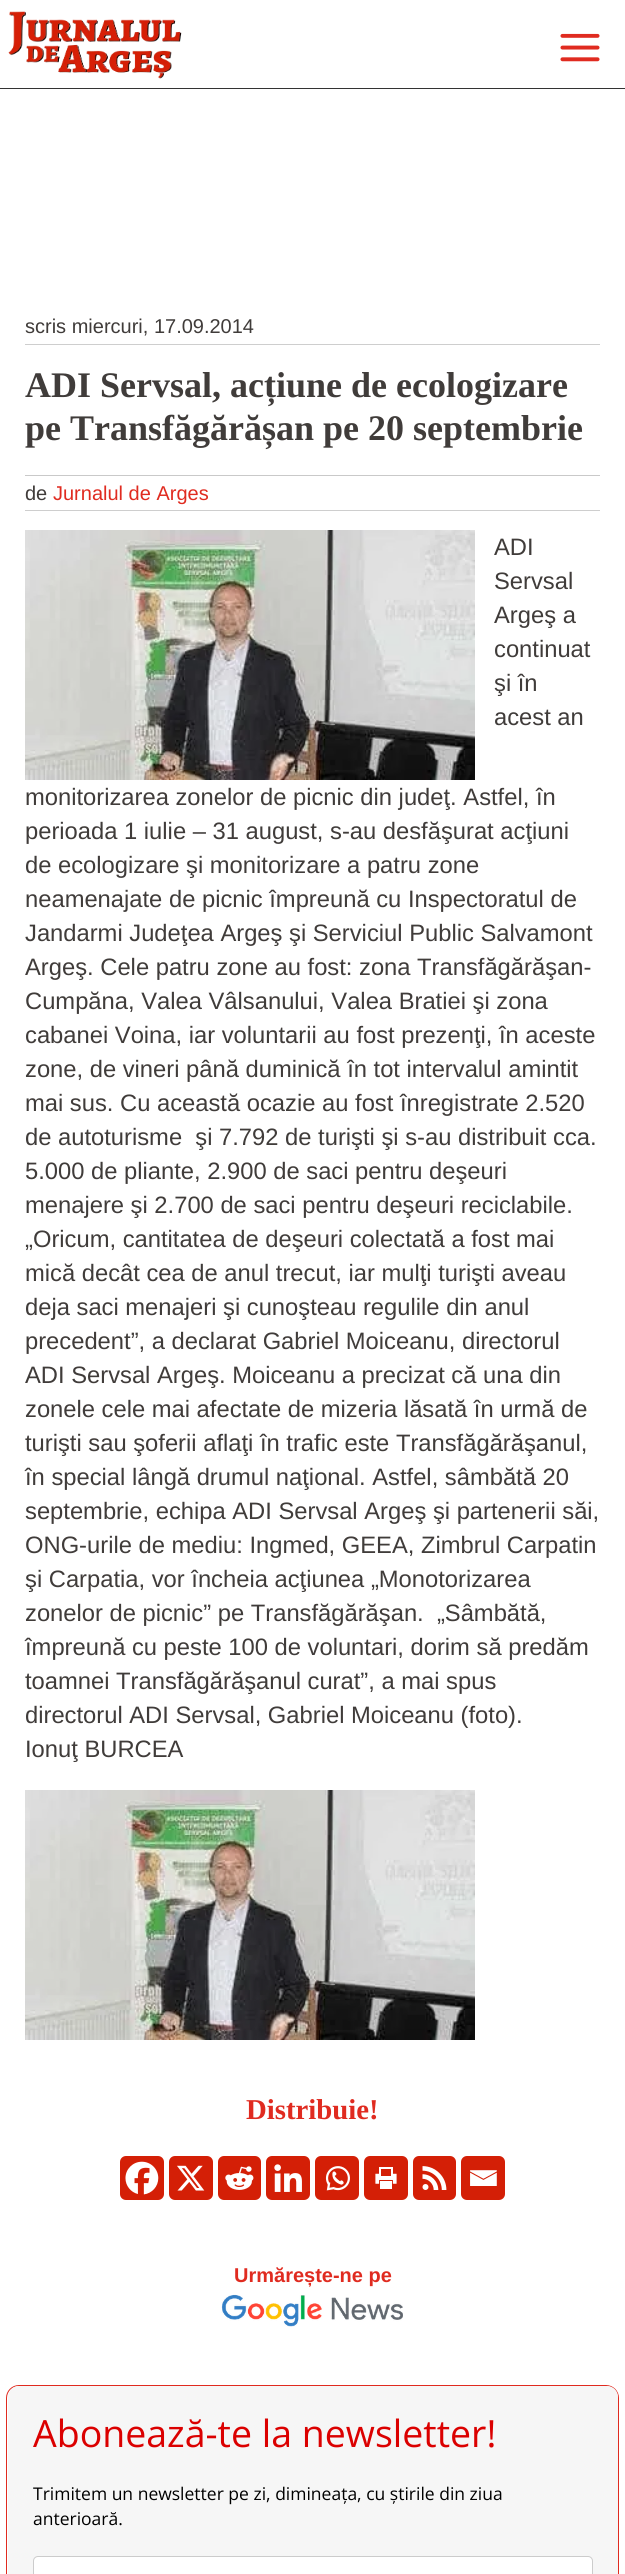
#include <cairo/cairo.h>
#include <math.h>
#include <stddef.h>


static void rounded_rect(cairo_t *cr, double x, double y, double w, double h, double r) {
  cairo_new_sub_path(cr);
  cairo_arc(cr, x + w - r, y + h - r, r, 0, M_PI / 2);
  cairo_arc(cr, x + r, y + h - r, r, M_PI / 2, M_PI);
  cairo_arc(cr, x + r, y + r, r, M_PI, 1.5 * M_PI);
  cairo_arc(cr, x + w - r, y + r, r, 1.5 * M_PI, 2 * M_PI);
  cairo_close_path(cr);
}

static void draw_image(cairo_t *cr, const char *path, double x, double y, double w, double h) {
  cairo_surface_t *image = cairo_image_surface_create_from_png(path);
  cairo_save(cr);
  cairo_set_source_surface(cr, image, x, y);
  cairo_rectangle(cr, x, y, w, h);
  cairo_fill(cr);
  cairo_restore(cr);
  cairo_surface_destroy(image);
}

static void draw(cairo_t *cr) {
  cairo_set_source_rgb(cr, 1, 1, 1);
  cairo_paint(cr);
  cairo_set_source_rgb(cr, 51 / 255.0, 51 / 255.0, 51 / 255.0);
  cairo_rectangle(cr, 0, 88, 625, 1);
  cairo_fill(cr);
  draw_image(cr, "images/1.png", 8, 11, 174, 68);
  draw_image(cr, "images/2.png", 560, 33, 40, 29);
  cairo_set_source_rgb(cr, 206 / 255.0, 206 / 255.0, 206 / 255.0);
  cairo_rectangle(cr, 25, 344, 575, 1);
  cairo_fill(cr);
  cairo_set_source_rgb(cr, 201 / 255.0, 201 / 255.0, 201 / 255.0);
  cairo_rectangle(cr, 25, 475, 575, 1);
  cairo_fill(cr);
  cairo_set_source_rgb(cr, 206 / 255.0, 206 / 255.0, 206 / 255.0);
  cairo_rectangle(cr, 25, 510, 575, 1);
  cairo_fill(cr);
  draw_image(cr, "images/3.png", 25, 530, 450, 250);
  draw_image(cr, "images/3.png", 25, 1790, 450, 250);
  cairo_set_source_rgb(cr, 212 / 255.0, 31 / 255.0, 6 / 255.0);
  rounded_rect(cr, 120, 2156, 44, 44, 6);
  cairo_fill(cr);
  draw_image(cr, "images/4.png", 125, 2161, 34, 34);
  rounded_rect(cr, 169, 2156, 44, 44, 6);
  cairo_fill(cr);
  draw_image(cr, "images/5.png", 177, 2165, 28, 26);
  rounded_rect(cr, 218, 2156, 43, 44, 6);
  cairo_fill(cr);
  draw_image(cr, "images/6.png", 225, 2166, 29, 24);
  rounded_rect(cr, 266, 2156, 44, 44, 6);
  cairo_fill(cr);
  draw_image(cr, "images/7.png", 274, 2164, 28, 28);
  rounded_rect(cr, 315, 2156, 44, 44, 6);
  cairo_fill(cr);
  draw_image(cr, "images/8.png", 325, 2166, 25, 25);
  rounded_rect(cr, 364, 2156, 44, 44, 6);
  cairo_fill(cr);
  draw_image(cr, "images/9.png", 375, 2167, 22, 22);
  rounded_rect(cr, 413, 2156, 43, 44, 6);
  cairo_fill(cr);
  draw_image(cr, "images/10.png", 422, 2166, 25, 24);
  rounded_rect(cr, 461, 2156, 44, 44, 6);
  cairo_fill(cr);
  draw_image(cr, "images/11.png", 470, 2170, 27, 16);
  draw_image(cr, "images/12.png", 221, 2294, 182, 33);
  rounded_rect(cr, 6.5, 2385.5, 612, 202, 12.5);
  cairo_set_source_rgb(cr, 224 / 255.0, 43 / 255.0, 32 / 255.0);
  cairo_set_line_width(cr, 1);
  cairo_stroke(cr);
  cairo_set_source_rgb(cr, 246 / 255.0, 246 / 255.0, 246 / 255.0);
  rounded_rect(cr, 8, 2386, 610, 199, 11);
  cairo_fill(cr);
  cairo_set_source_rgb(cr, 1, 1, 1);
  rounded_rect(cr, 33.5, 2556.5, 559, 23, 4.5);
  cairo_fill_preserve(cr);
  cairo_set_source_rgb(cr, 204 / 255.0, 204 / 255.0, 204 / 255.0);
  cairo_stroke(cr);
  cairo_select_font_face(cr, "Liberation Sans", CAIRO_FONT_SLANT_NORMAL, CAIRO_FONT_WEIGHT_NORMAL);
  cairo_set_font_size(cr, 20);
  cairo_set_source_rgb(cr, 64 / 255.0, 60 / 255.0, 58 / 255.0);
  cairo_move_to(cr, 25, 333);
  cairo_show_text(cr, "scris miercuri, 17.09.2014");
  cairo_select_font_face(cr, "Liberation Serif", CAIRO_FONT_SLANT_NORMAL, CAIRO_FONT_WEIGHT_BOLD);
  cairo_set_font_size(cr, 36);
  cairo_move_to(cr, 25, 397);
  cairo_show_text(cr, "ADI Servsal, acțiune de ecologizare");
  cairo_move_to(cr, 25, 440);
  cairo_show_text(cr, "pe Transfăgărășan pe 20 septembrie");
  cairo_select_font_face(cr, "Liberation Sans", CAIRO_FONT_SLANT_NORMAL, CAIRO_FONT_WEIGHT_NORMAL);
  cairo_set_font_size(cr, 20);
  cairo_move_to(cr, 25, 500);
  cairo_show_text(cr, "de");
  cairo_set_source_rgb(cr, 224 / 255.0, 43 / 255.0, 32 / 255.0);
  cairo_move_to(cr, 53, 500);
  cairo_show_text(cr, "Jurnalul de Arges");
  cairo_set_font_size(cr, 23.75);
  cairo_set_source_rgb(cr, 64 / 255.0, 60 / 255.0, 58 / 255.0);
  cairo_move_to(cr, 494, 555);
  cairo_show_text(cr, "ADI");
  cairo_move_to(cr, 494, 589);
  cairo_show_text(cr, "Servsal");
  cairo_move_to(cr, 494, 623);
  cairo_show_text(cr, "Argeş a");
  cairo_move_to(cr, 494, 657);
  cairo_show_text(cr, "continuat");
  cairo_move_to(cr, 494, 691);
  cairo_show_text(cr, "şi în");
  cairo_move_to(cr, 494, 725);
  cairo_show_text(cr, "acest an");
  cairo_move_to(cr, 25, 805);
  cairo_show_text(cr, "monitorizarea zonelor de picnic din judeţ. Astfel, în");
  cairo_move_to(cr, 25, 839);
  cairo_show_text(cr, "perioada 1 iulie – 31 august, s-au desfăşurat acţiuni");
  cairo_move_to(cr, 25, 873);
  cairo_show_text(cr, "de ecologizare şi monitorizare a patru zone");
  cairo_move_to(cr, 25, 907);
  cairo_show_text(cr, "neamenajate de picnic împreună cu Inspectoratul de");
  cairo_move_to(cr, 25, 941);
  cairo_show_text(cr, "Jandarmi Judeţea Argeş şi Serviciul Public Salvamont");
  cairo_move_to(cr, 25, 975);
  cairo_show_text(cr, "Argeş. Cele patru zone au fost: zona Transfăgărăşan-");
  cairo_move_to(cr, 25, 1009);
  cairo_show_text(cr, "Cumpăna, Valea Vâlsanului, Valea Bratiei şi zona");
  cairo_move_to(cr, 25, 1043);
  cairo_show_text(cr, "cabanei Voina, iar voluntarii au fost prezenţi, în aceste");
  cairo_move_to(cr, 25, 1077);
  cairo_show_text(cr, "zone, de vineri până duminică în tot intervalul amintit");
  cairo_move_to(cr, 25, 1111);
  cairo_show_text(cr, "mai sus. Cu această ocazie au fost înregistrate 2.520");
  cairo_move_to(cr, 25, 1145);
  cairo_show_text(cr, "de autoturisme  şi 7.792 de turişti şi s-au distribuit cca.");
  cairo_move_to(cr, 25, 1179);
  cairo_show_text(cr, "5.000 de pliante, 2.900 de saci pentru deşeuri");
  cairo_move_to(cr, 25, 1213);
  cairo_show_text(cr, "menajere şi 2.700 de saci pentru deşeuri reciclabile.");
  cairo_move_to(cr, 25, 1247);
  cairo_show_text(cr, "„Oricum, cantitatea de deşeuri colectată a fost mai");
  cairo_move_to(cr, 25, 1281);
  cairo_show_text(cr, "mică decât cea de anul trecut, iar mulţi turişti aveau");
  cairo_move_to(cr, 25, 1315);
  cairo_show_text(cr, "deja saci menajeri şi cunoşteau regulile din anul");
  cairo_move_to(cr, 25, 1349);
  cairo_show_text(cr, "precedent”, a declarat Gabriel Moiceanu, directorul");
  cairo_move_to(cr, 25, 1383);
  cairo_show_text(cr, "ADI Servsal Argeş. Moiceanu a precizat că una din");
  cairo_move_to(cr, 25, 1417);
  cairo_show_text(cr, "zonele cele mai afectate de mizeria lăsată în urmă de");
  cairo_move_to(cr, 25, 1451);
  cairo_show_text(cr, "turişti sau şoferii aflaţi în trafic este Transfăgărăşanul,");
  cairo_move_to(cr, 25, 1485);
  cairo_show_text(cr, "în special lângă drumul naţional. Astfel, sâmbătă 20");
  cairo_move_to(cr, 25, 1519);
  cairo_show_text(cr, "septembrie, echipa ADI Servsal Argeş şi partenerii săi,");
  cairo_move_to(cr, 25, 1553);
  cairo_show_text(cr, "ONG-urile de mediu: Ingmed, GEEA, Zimbrul Carpatin");
  cairo_move_to(cr, 25, 1587);
  cairo_show_text(cr, "şi Carpatia, vor încheia acţiunea „Monotorizarea");
  cairo_move_to(cr, 25, 1621);
  cairo_show_text(cr, "zonelor de picnic” pe Transfăgărăşan.  „Sâmbătă,");
  cairo_move_to(cr, 25, 1655);
  cairo_show_text(cr, "împreună cu peste 100 de voluntari, dorim să predăm");
  cairo_move_to(cr, 25, 1689);
  cairo_show_text(cr, "toamnei Transfăgărăşanul curat”, a mai spus");
  cairo_move_to(cr, 25, 1723);
  cairo_show_text(cr, "directorul ADI Servsal, Gabriel Moiceanu (foto).");
  cairo_move_to(cr, 25, 1757);
  cairo_show_text(cr, "Ionuţ BURCEA");
  cairo_select_font_face(cr, "Liberation Serif", CAIRO_FONT_SLANT_NORMAL, CAIRO_FONT_WEIGHT_BOLD);
  cairo_set_font_size(cr, 28.75);
  cairo_set_source_rgb(cr, 224 / 255.0, 43 / 255.0, 32 / 255.0);
  cairo_move_to(cr, 246, 2119);
  cairo_show_text(cr, "Distribuie!");
  cairo_select_font_face(cr, "Liberation Sans", CAIRO_FONT_SLANT_NORMAL, CAIRO_FONT_WEIGHT_BOLD);
  cairo_set_font_size(cr, 20);
  cairo_move_to(cr, 234, 2282);
  cairo_show_text(cr, "Urmărește-ne pe");
  cairo_select_font_face(cr, "Open Sans", CAIRO_FONT_SLANT_NORMAL, CAIRO_FONT_WEIGHT_NORMAL);
  cairo_set_font_size(cr, 37.5);
  cairo_set_source_rgb(cr, 219 / 255.0, 0, 0);
  cairo_move_to(cr, 33, 2447);
  cairo_show_text(cr, "Abonează-te la newsletter!");
  cairo_set_font_size(cr, 17.5);
  cairo_set_source_rgb(cr, 0, 0, 0);
  cairo_move_to(cr, 33, 2500);
  cairo_show_text(cr, "Trimitem un newsletter pe zi, dimineața, cu știrile din ziua");
  cairo_move_to(cr, 33, 2525);
  cairo_show_text(cr, "anterioară.");
}

int main(void) {
  cairo_surface_t *surface = cairo_image_surface_create(CAIRO_FORMAT_RGB24, 625, 2574);
  cairo_t *cr = cairo_create(surface);
  cairo_font_options_t *options = cairo_font_options_create();
  cairo_font_options_set_hint_metrics(options, CAIRO_HINT_METRICS_OFF);
  cairo_font_options_set_hint_style(options, CAIRO_HINT_STYLE_NONE);
  cairo_set_font_options(cr, options);
  cairo_set_miter_limit(cr, 4);
  draw(cr);
  cairo_surface_write_to_png(surface, "out.png");
  cairo_font_options_destroy(options);
  cairo_destroy(cr);
  cairo_surface_destroy(surface);
  return 0;
}
